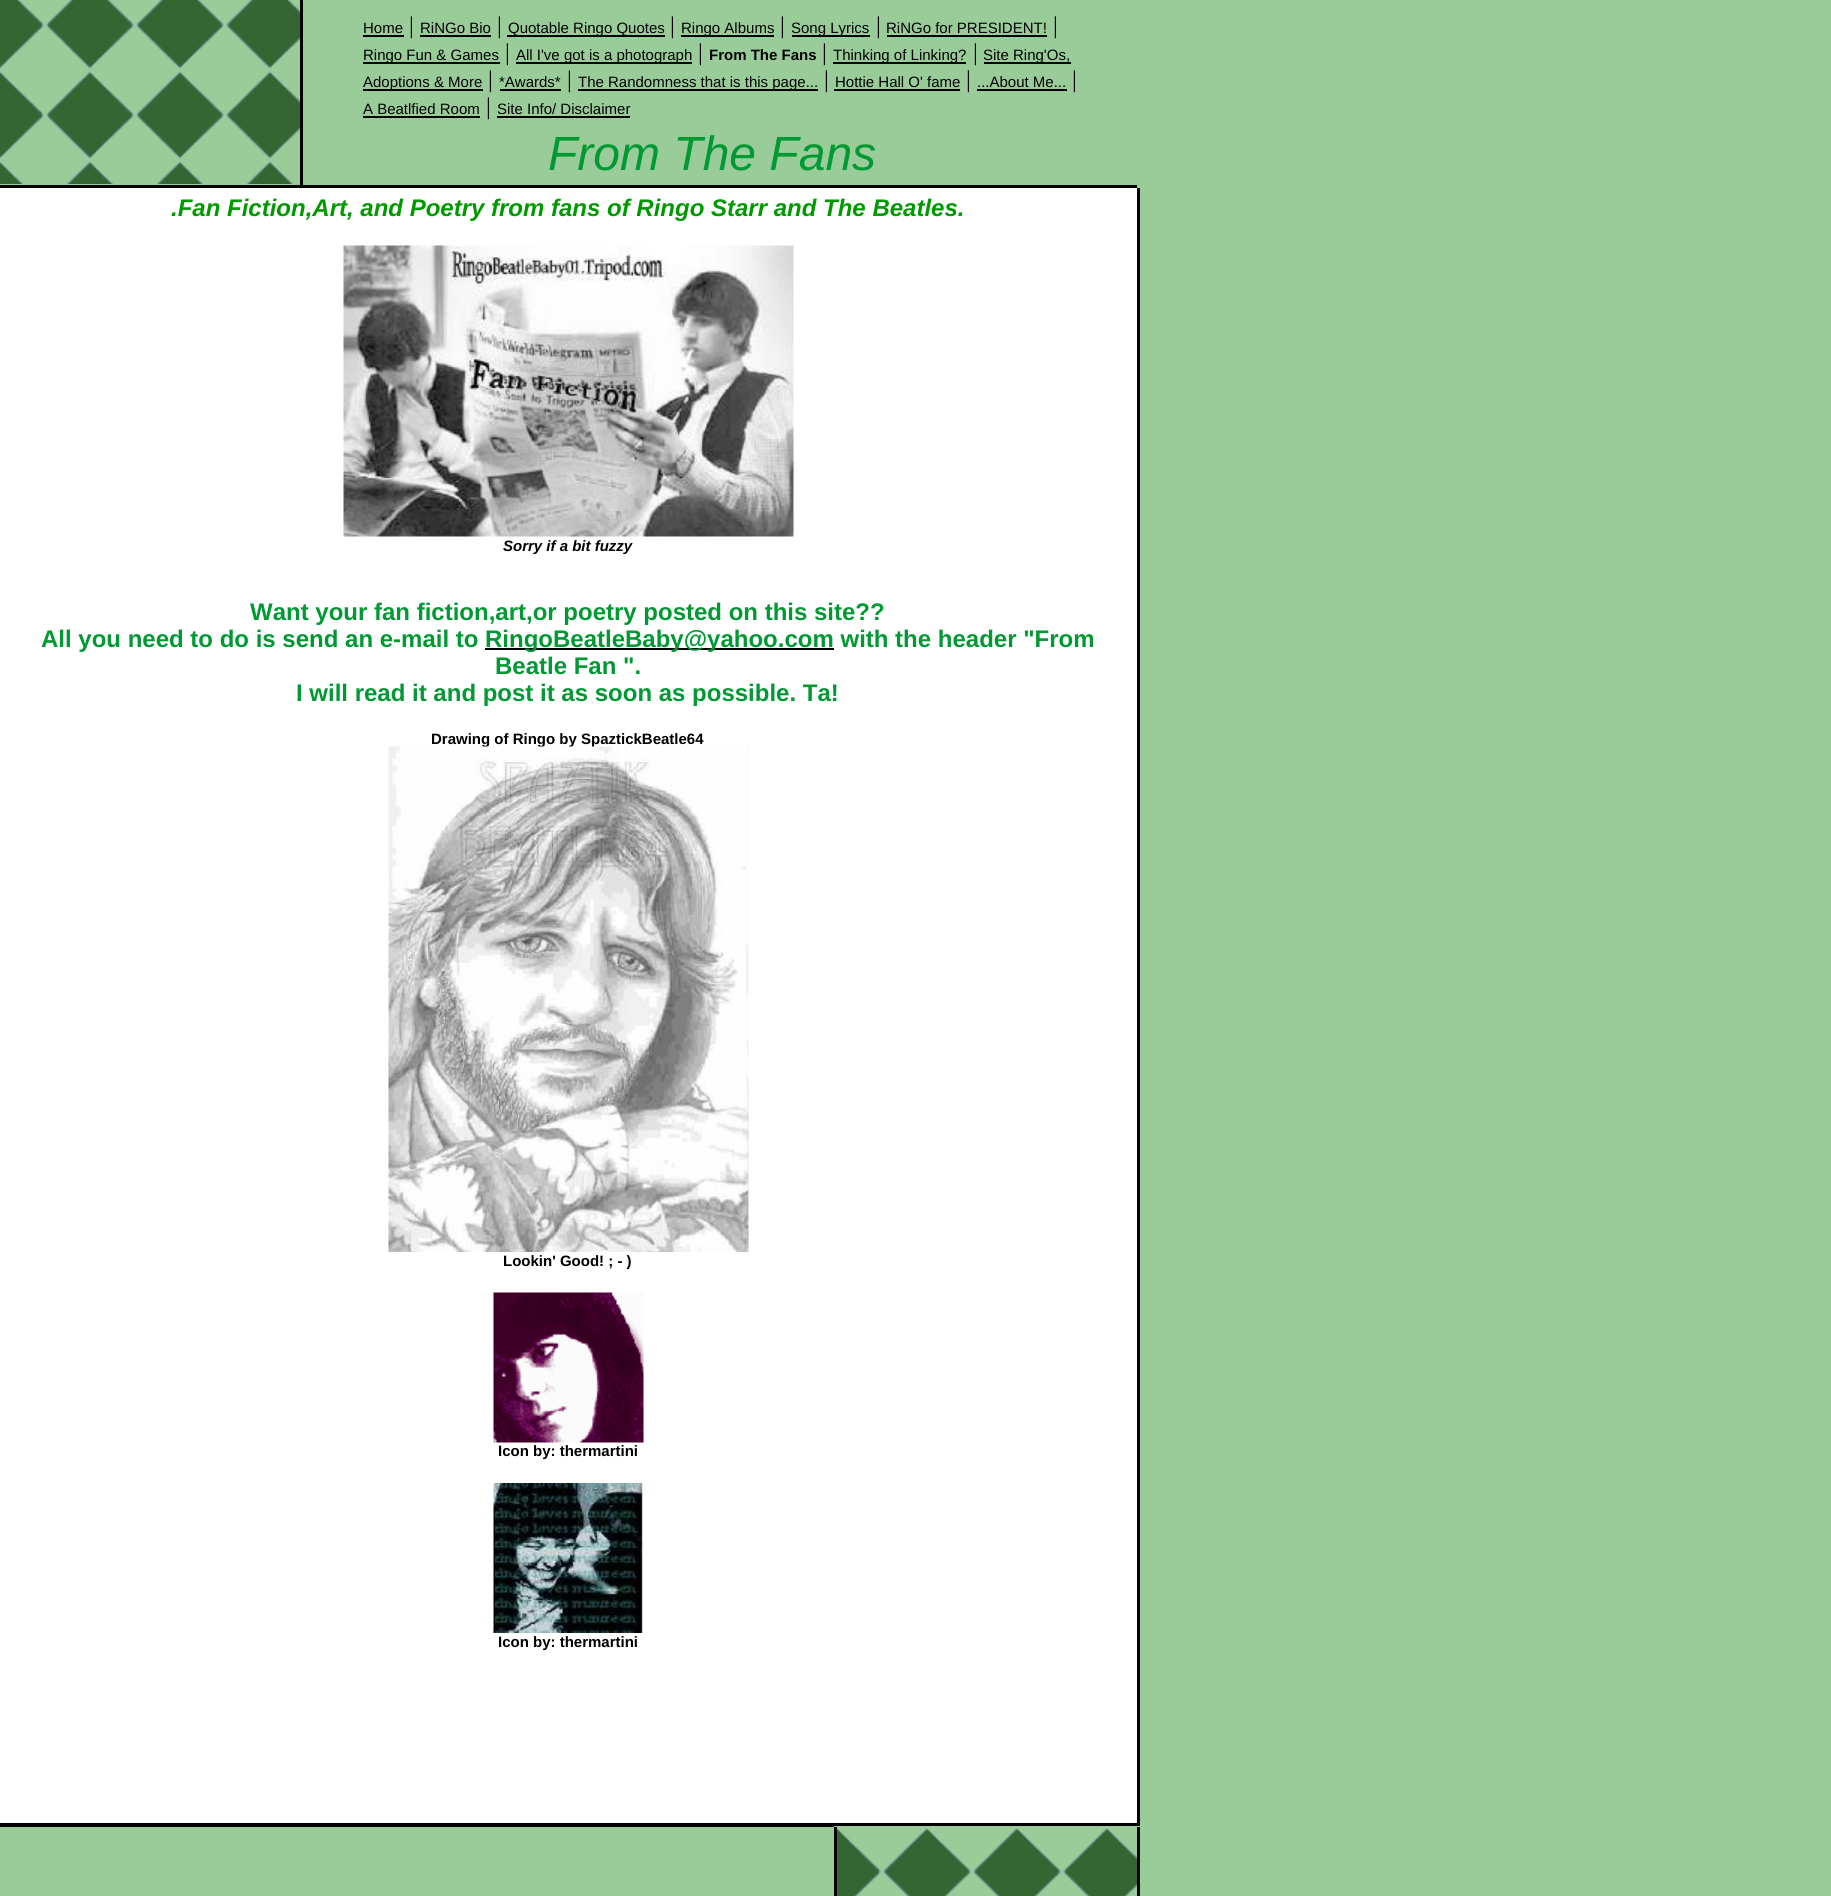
#include <cairo/cairo.h>
#include <math.h>
#include <stddef.h>


static void draw_image(cairo_t *cr, const char *path, double x, double y, double w, double h) {
  cairo_surface_t *image = cairo_image_surface_create_from_png(path);
  cairo_save(cr);
  cairo_set_source_surface(cr, image, x, y);
  cairo_rectangle(cr, x, y, w, h);
  cairo_fill(cr);
  cairo_restore(cr);
  cairo_surface_destroy(image);
}

static void draw(cairo_t *cr) {
  cairo_set_source_rgb(cr, 153 / 255.0, 204 / 255.0, 153 / 255.0);
  cairo_paint(cr);
  draw_image(cr, "images/1.png", 0, 0, 300, 184);
  cairo_set_source_rgb(cr, 0, 0, 0);
  cairo_rectangle(cr, 300, 0, 3, 185);
  cairo_fill(cr);
  cairo_rectangle(cr, 363, 35, 41, 2);
  cairo_fill(cr);
  cairo_rectangle(cr, 420, 35, 71, 2);
  cairo_fill(cr);
  cairo_rectangle(cr, 507, 35, 158, 2);
  cairo_fill(cr);
  cairo_rectangle(cr, 681, 35, 93, 2);
  cairo_fill(cr);
  cairo_rectangle(cr, 792, 35, 78, 2);
  cairo_fill(cr);
  cairo_rectangle(cr, 887, 35, 160, 2);
  cairo_fill(cr);
  cairo_rectangle(cr, 363, 62, 137, 2);
  cairo_fill(cr);
  cairo_rectangle(cr, 516, 62, 176, 2);
  cairo_fill(cr);
  cairo_rectangle(cr, 833, 62, 133, 2);
  cairo_fill(cr);
  cairo_rectangle(cr, 984, 62, 87, 2);
  cairo_fill(cr);
  cairo_rectangle(cr, 363, 89, 120, 2);
  cairo_fill(cr);
  cairo_rectangle(cr, 500, 89, 61, 2);
  cairo_fill(cr);
  cairo_rectangle(cr, 578, 89, 240, 2);
  cairo_fill(cr);
  cairo_rectangle(cr, 834, 89, 126, 2);
  cairo_fill(cr);
  cairo_rectangle(cr, 977, 89, 90, 2);
  cairo_fill(cr);
  cairo_rectangle(cr, 363, 116, 117, 2);
  cairo_fill(cr);
  cairo_rectangle(cr, 497, 116, 133, 2);
  cairo_fill(cr);
  cairo_rectangle(cr, 0, 185, 1137, 3);
  cairo_fill(cr);
  cairo_set_source_rgb(cr, 1, 1, 1);
  cairo_rectangle(cr, 0, 188, 1137, 1635);
  cairo_fill(cr);
  draw_image(cr, "images/2.png", 343, 245, 451, 292);
  cairo_set_source_rgb(cr, 0, 0, 0);
  cairo_rectangle(cr, 485, 648, 349, 2);
  cairo_fill(cr);
  draw_image(cr, "images/4.png", 493, 1292, 151, 151);
  draw_image(cr, "images/5.png", 493, 1483, 151, 150);
  cairo_rectangle(cr, 1137, 188, 3, 1635);
  cairo_fill(cr);
  cairo_rectangle(cr, 0, 1823, 1140, 3);
  cairo_fill(cr);
  cairo_rectangle(cr, 0, 1826, 834, 1);
  cairo_fill(cr);
  cairo_rectangle(cr, 834, 1827, 3, 69);
  cairo_fill(cr);
  draw_image(cr, "images/6.png", 837, 1828, 300, 68);
  cairo_rectangle(cr, 1137, 1827, 3, 69);
  cairo_fill(cr);
  cairo_select_font_face(cr, "Liberation Sans", CAIRO_FONT_SLANT_NORMAL, CAIRO_FONT_WEIGHT_NORMAL);
  cairo_set_font_size(cr, 15);
  cairo_move_to(cr, 363, 33);
  cairo_show_text(cr, "Home");
  cairo_select_font_face(cr, "Liberation Serif", CAIRO_FONT_SLANT_NORMAL, CAIRO_FONT_WEIGHT_NORMAL);
  cairo_set_font_size(cr, 24);
  cairo_move_to(cr, 409, 33);
  cairo_show_text(cr, "|");
  cairo_select_font_face(cr, "Liberation Sans", CAIRO_FONT_SLANT_NORMAL, CAIRO_FONT_WEIGHT_NORMAL);
  cairo_set_font_size(cr, 15);
  cairo_move_to(cr, 420, 33);
  cairo_show_text(cr, "RiNGo Bio");
  cairo_select_font_face(cr, "Liberation Serif", CAIRO_FONT_SLANT_NORMAL, CAIRO_FONT_WEIGHT_NORMAL);
  cairo_set_font_size(cr, 24);
  cairo_move_to(cr, 497, 33);
  cairo_show_text(cr, "|");
  cairo_select_font_face(cr, "Liberation Sans", CAIRO_FONT_SLANT_NORMAL, CAIRO_FONT_WEIGHT_NORMAL);
  cairo_set_font_size(cr, 15);
  cairo_move_to(cr, 508, 33);
  cairo_show_text(cr, "Quotable Ringo Quotes");
  cairo_select_font_face(cr, "Liberation Serif", CAIRO_FONT_SLANT_NORMAL, CAIRO_FONT_WEIGHT_NORMAL);
  cairo_set_font_size(cr, 24);
  cairo_move_to(cr, 670, 33);
  cairo_show_text(cr, "|");
  cairo_select_font_face(cr, "Liberation Sans", CAIRO_FONT_SLANT_NORMAL, CAIRO_FONT_WEIGHT_NORMAL);
  cairo_set_font_size(cr, 15);
  cairo_move_to(cr, 681, 33);
  cairo_show_text(cr, "Ringo Albums");
  cairo_select_font_face(cr, "Liberation Serif", CAIRO_FONT_SLANT_NORMAL, CAIRO_FONT_WEIGHT_NORMAL);
  cairo_set_font_size(cr, 24);
  cairo_move_to(cr, 780, 33);
  cairo_show_text(cr, "|");
  cairo_select_font_face(cr, "Liberation Sans", CAIRO_FONT_SLANT_NORMAL, CAIRO_FONT_WEIGHT_NORMAL);
  cairo_set_font_size(cr, 15);
  cairo_move_to(cr, 791, 33);
  cairo_show_text(cr, "Song Lyrics");
  cairo_select_font_face(cr, "Liberation Serif", CAIRO_FONT_SLANT_NORMAL, CAIRO_FONT_WEIGHT_NORMAL);
  cairo_set_font_size(cr, 24);
  cairo_move_to(cr, 876, 33);
  cairo_show_text(cr, "|");
  cairo_select_font_face(cr, "Liberation Sans", CAIRO_FONT_SLANT_NORMAL, CAIRO_FONT_WEIGHT_NORMAL);
  cairo_set_font_size(cr, 15);
  cairo_move_to(cr, 886, 33);
  cairo_show_text(cr, "RiNGo for PRESIDENT!");
  cairo_select_font_face(cr, "Liberation Serif", CAIRO_FONT_SLANT_NORMAL, CAIRO_FONT_WEIGHT_NORMAL);
  cairo_set_font_size(cr, 24);
  cairo_move_to(cr, 1053, 33);
  cairo_show_text(cr, "|");
  cairo_select_font_face(cr, "Liberation Sans", CAIRO_FONT_SLANT_NORMAL, CAIRO_FONT_WEIGHT_NORMAL);
  cairo_set_font_size(cr, 15);
  cairo_move_to(cr, 363, 60);
  cairo_show_text(cr, "Ringo Fun & Games");
  cairo_select_font_face(cr, "Liberation Serif", CAIRO_FONT_SLANT_NORMAL, CAIRO_FONT_WEIGHT_NORMAL);
  cairo_set_font_size(cr, 24);
  cairo_move_to(cr, 505, 60);
  cairo_show_text(cr, "|");
  cairo_select_font_face(cr, "Liberation Sans", CAIRO_FONT_SLANT_NORMAL, CAIRO_FONT_WEIGHT_NORMAL);
  cairo_set_font_size(cr, 15);
  cairo_move_to(cr, 516, 60);
  cairo_show_text(cr, "All I've got is a photograph");
  cairo_select_font_face(cr, "Liberation Serif", CAIRO_FONT_SLANT_NORMAL, CAIRO_FONT_WEIGHT_NORMAL);
  cairo_set_font_size(cr, 24);
  cairo_move_to(cr, 698, 60);
  cairo_show_text(cr, "|");
  cairo_select_font_face(cr, "Liberation Sans", CAIRO_FONT_SLANT_NORMAL, CAIRO_FONT_WEIGHT_BOLD);
  cairo_set_font_size(cr, 15);
  cairo_move_to(cr, 709, 60);
  cairo_show_text(cr, "From The Fans");
  cairo_select_font_face(cr, "Liberation Serif", CAIRO_FONT_SLANT_NORMAL, CAIRO_FONT_WEIGHT_NORMAL);
  cairo_set_font_size(cr, 24);
  cairo_move_to(cr, 822, 60);
  cairo_show_text(cr, "|");
  cairo_select_font_face(cr, "Liberation Sans", CAIRO_FONT_SLANT_NORMAL, CAIRO_FONT_WEIGHT_NORMAL);
  cairo_set_font_size(cr, 15);
  cairo_move_to(cr, 833, 60);
  cairo_show_text(cr, "Thinking of Linking?");
  cairo_select_font_face(cr, "Liberation Serif", CAIRO_FONT_SLANT_NORMAL, CAIRO_FONT_WEIGHT_NORMAL);
  cairo_set_font_size(cr, 24);
  cairo_move_to(cr, 973, 60);
  cairo_show_text(cr, "|");
  cairo_select_font_face(cr, "Liberation Sans", CAIRO_FONT_SLANT_NORMAL, CAIRO_FONT_WEIGHT_NORMAL);
  cairo_set_font_size(cr, 15);
  cairo_move_to(cr, 983, 60);
  cairo_show_text(cr, "Site Ring'Os,");
  cairo_move_to(cr, 363, 87);
  cairo_show_text(cr, "Adoptions & More");
  cairo_select_font_face(cr, "Liberation Serif", CAIRO_FONT_SLANT_NORMAL, CAIRO_FONT_WEIGHT_NORMAL);
  cairo_set_font_size(cr, 24);
  cairo_move_to(cr, 488, 87);
  cairo_show_text(cr, "|");
  cairo_select_font_face(cr, "Liberation Sans", CAIRO_FONT_SLANT_NORMAL, CAIRO_FONT_WEIGHT_NORMAL);
  cairo_set_font_size(cr, 15);
  cairo_move_to(cr, 499, 87);
  cairo_show_text(cr, "*Awards*");
  cairo_select_font_face(cr, "Liberation Serif", CAIRO_FONT_SLANT_NORMAL, CAIRO_FONT_WEIGHT_NORMAL);
  cairo_set_font_size(cr, 24);
  cairo_move_to(cr, 567, 87);
  cairo_show_text(cr, "|");
  cairo_select_font_face(cr, "Liberation Sans", CAIRO_FONT_SLANT_NORMAL, CAIRO_FONT_WEIGHT_NORMAL);
  cairo_set_font_size(cr, 15);
  cairo_move_to(cr, 578, 87);
  cairo_show_text(cr, "The Randomness that is this page...");
  cairo_select_font_face(cr, "Liberation Serif", CAIRO_FONT_SLANT_NORMAL, CAIRO_FONT_WEIGHT_NORMAL);
  cairo_set_font_size(cr, 24);
  cairo_move_to(cr, 824, 87);
  cairo_show_text(cr, "|");
  cairo_select_font_face(cr, "Liberation Sans", CAIRO_FONT_SLANT_NORMAL, CAIRO_FONT_WEIGHT_NORMAL);
  cairo_set_font_size(cr, 15);
  cairo_move_to(cr, 835, 87);
  cairo_show_text(cr, "Hottie Hall O' fame");
  cairo_select_font_face(cr, "Liberation Serif", CAIRO_FONT_SLANT_NORMAL, CAIRO_FONT_WEIGHT_NORMAL);
  cairo_set_font_size(cr, 24);
  cairo_move_to(cr, 966, 87);
  cairo_show_text(cr, "|");
  cairo_select_font_face(cr, "Liberation Sans", CAIRO_FONT_SLANT_NORMAL, CAIRO_FONT_WEIGHT_NORMAL);
  cairo_set_font_size(cr, 15);
  cairo_move_to(cr, 977, 87);
  cairo_show_text(cr, "...About Me...");
  cairo_select_font_face(cr, "Liberation Serif", CAIRO_FONT_SLANT_NORMAL, CAIRO_FONT_WEIGHT_NORMAL);
  cairo_set_font_size(cr, 24);
  cairo_move_to(cr, 1072, 87);
  cairo_show_text(cr, "|");
  cairo_select_font_face(cr, "Liberation Sans", CAIRO_FONT_SLANT_NORMAL, CAIRO_FONT_WEIGHT_NORMAL);
  cairo_set_font_size(cr, 15);
  cairo_move_to(cr, 363, 114);
  cairo_show_text(cr, "A Beatlfied Room");
  cairo_select_font_face(cr, "Liberation Serif", CAIRO_FONT_SLANT_NORMAL, CAIRO_FONT_WEIGHT_NORMAL);
  cairo_set_font_size(cr, 24);
  cairo_move_to(cr, 486, 114);
  cairo_show_text(cr, "|");
  cairo_select_font_face(cr, "Liberation Sans", CAIRO_FONT_SLANT_NORMAL, CAIRO_FONT_WEIGHT_NORMAL);
  cairo_set_font_size(cr, 15);
  cairo_move_to(cr, 497, 114);
  cairo_show_text(cr, "Site Info/ Disclaimer");
  cairo_select_font_face(cr, "Liberation Sans", CAIRO_FONT_SLANT_ITALIC, CAIRO_FONT_WEIGHT_NORMAL);
  cairo_set_font_size(cr, 48);
  cairo_set_source_rgb(cr, 0, 153 / 255.0, 51 / 255.0);
  cairo_move_to(cr, 548, 170);
  cairo_show_text(cr, "From The Fans");
  cairo_select_font_face(cr, "Liberation Sans", CAIRO_FONT_SLANT_ITALIC, CAIRO_FONT_WEIGHT_BOLD);
  cairo_set_font_size(cr, 24);
  cairo_set_source_rgb(cr, 0, 153 / 255.0, 0);
  cairo_move_to(cr, 171, 216);
  cairo_show_text(cr, ".Fan Fiction,Art, and Poetry from fans of Ringo Starr and The Beatles.");
  cairo_set_font_size(cr, 15);
  cairo_set_source_rgb(cr, 0, 0, 0);
  cairo_move_to(cr, 503, 551);
  cairo_show_text(cr, "Sorry if a bit fuzzy");
  cairo_select_font_face(cr, "Liberation Sans", CAIRO_FONT_SLANT_NORMAL, CAIRO_FONT_WEIGHT_BOLD);
  cairo_set_font_size(cr, 24);
  cairo_set_source_rgb(cr, 0, 153 / 255.0, 51 / 255.0);
  cairo_move_to(cr, 250, 620);
  cairo_show_text(cr, "Want your fan fiction,art,or poetry posted on this site?\077");
  cairo_move_to(cr, 41, 647);
  cairo_show_text(cr, "All you need to do is send an e-mail to");
  cairo_move_to(cr, 485, 647);
  cairo_show_text(cr, "RingoBeatleBaby@yahoo.com with the header \"From");
  cairo_move_to(cr, 495, 674);
  cairo_show_text(cr, "Beatle Fan \".");
  cairo_move_to(cr, 296, 701);
  cairo_show_text(cr, "I will read it and post it as soon as possible. Ta!");
  cairo_set_font_size(cr, 15);
  cairo_set_source_rgb(cr, 0, 0, 0);
  cairo_move_to(cr, 431, 744);
  cairo_show_text(cr, "Drawing of Ringo by SpaztickBeatle64");
  draw_image(cr, "images/3.png", 388, 746, 361, 506);
  cairo_move_to(cr, 503, 1266);
  cairo_show_text(cr, "Lookin' Good! ; - )");
  cairo_move_to(cr, 498, 1456);
  cairo_show_text(cr, "Icon by: thermartini");
  cairo_move_to(cr, 498, 1647);
  cairo_show_text(cr, "Icon by: thermartini");
}

int main(void) {
  cairo_surface_t *surface = cairo_image_surface_create(CAIRO_FORMAT_RGB24, 1831, 1896);
  cairo_t *cr = cairo_create(surface);
  cairo_font_options_t *options = cairo_font_options_create();
  cairo_font_options_set_hint_metrics(options, CAIRO_HINT_METRICS_OFF);
  cairo_font_options_set_hint_style(options, CAIRO_HINT_STYLE_NONE);
  cairo_set_font_options(cr, options);
  cairo_set_miter_limit(cr, 4);
  draw(cr);
  cairo_surface_write_to_png(surface, "out.png");
  cairo_font_options_destroy(options);
  cairo_destroy(cr);
  cairo_surface_destroy(surface);
  return 0;
}
